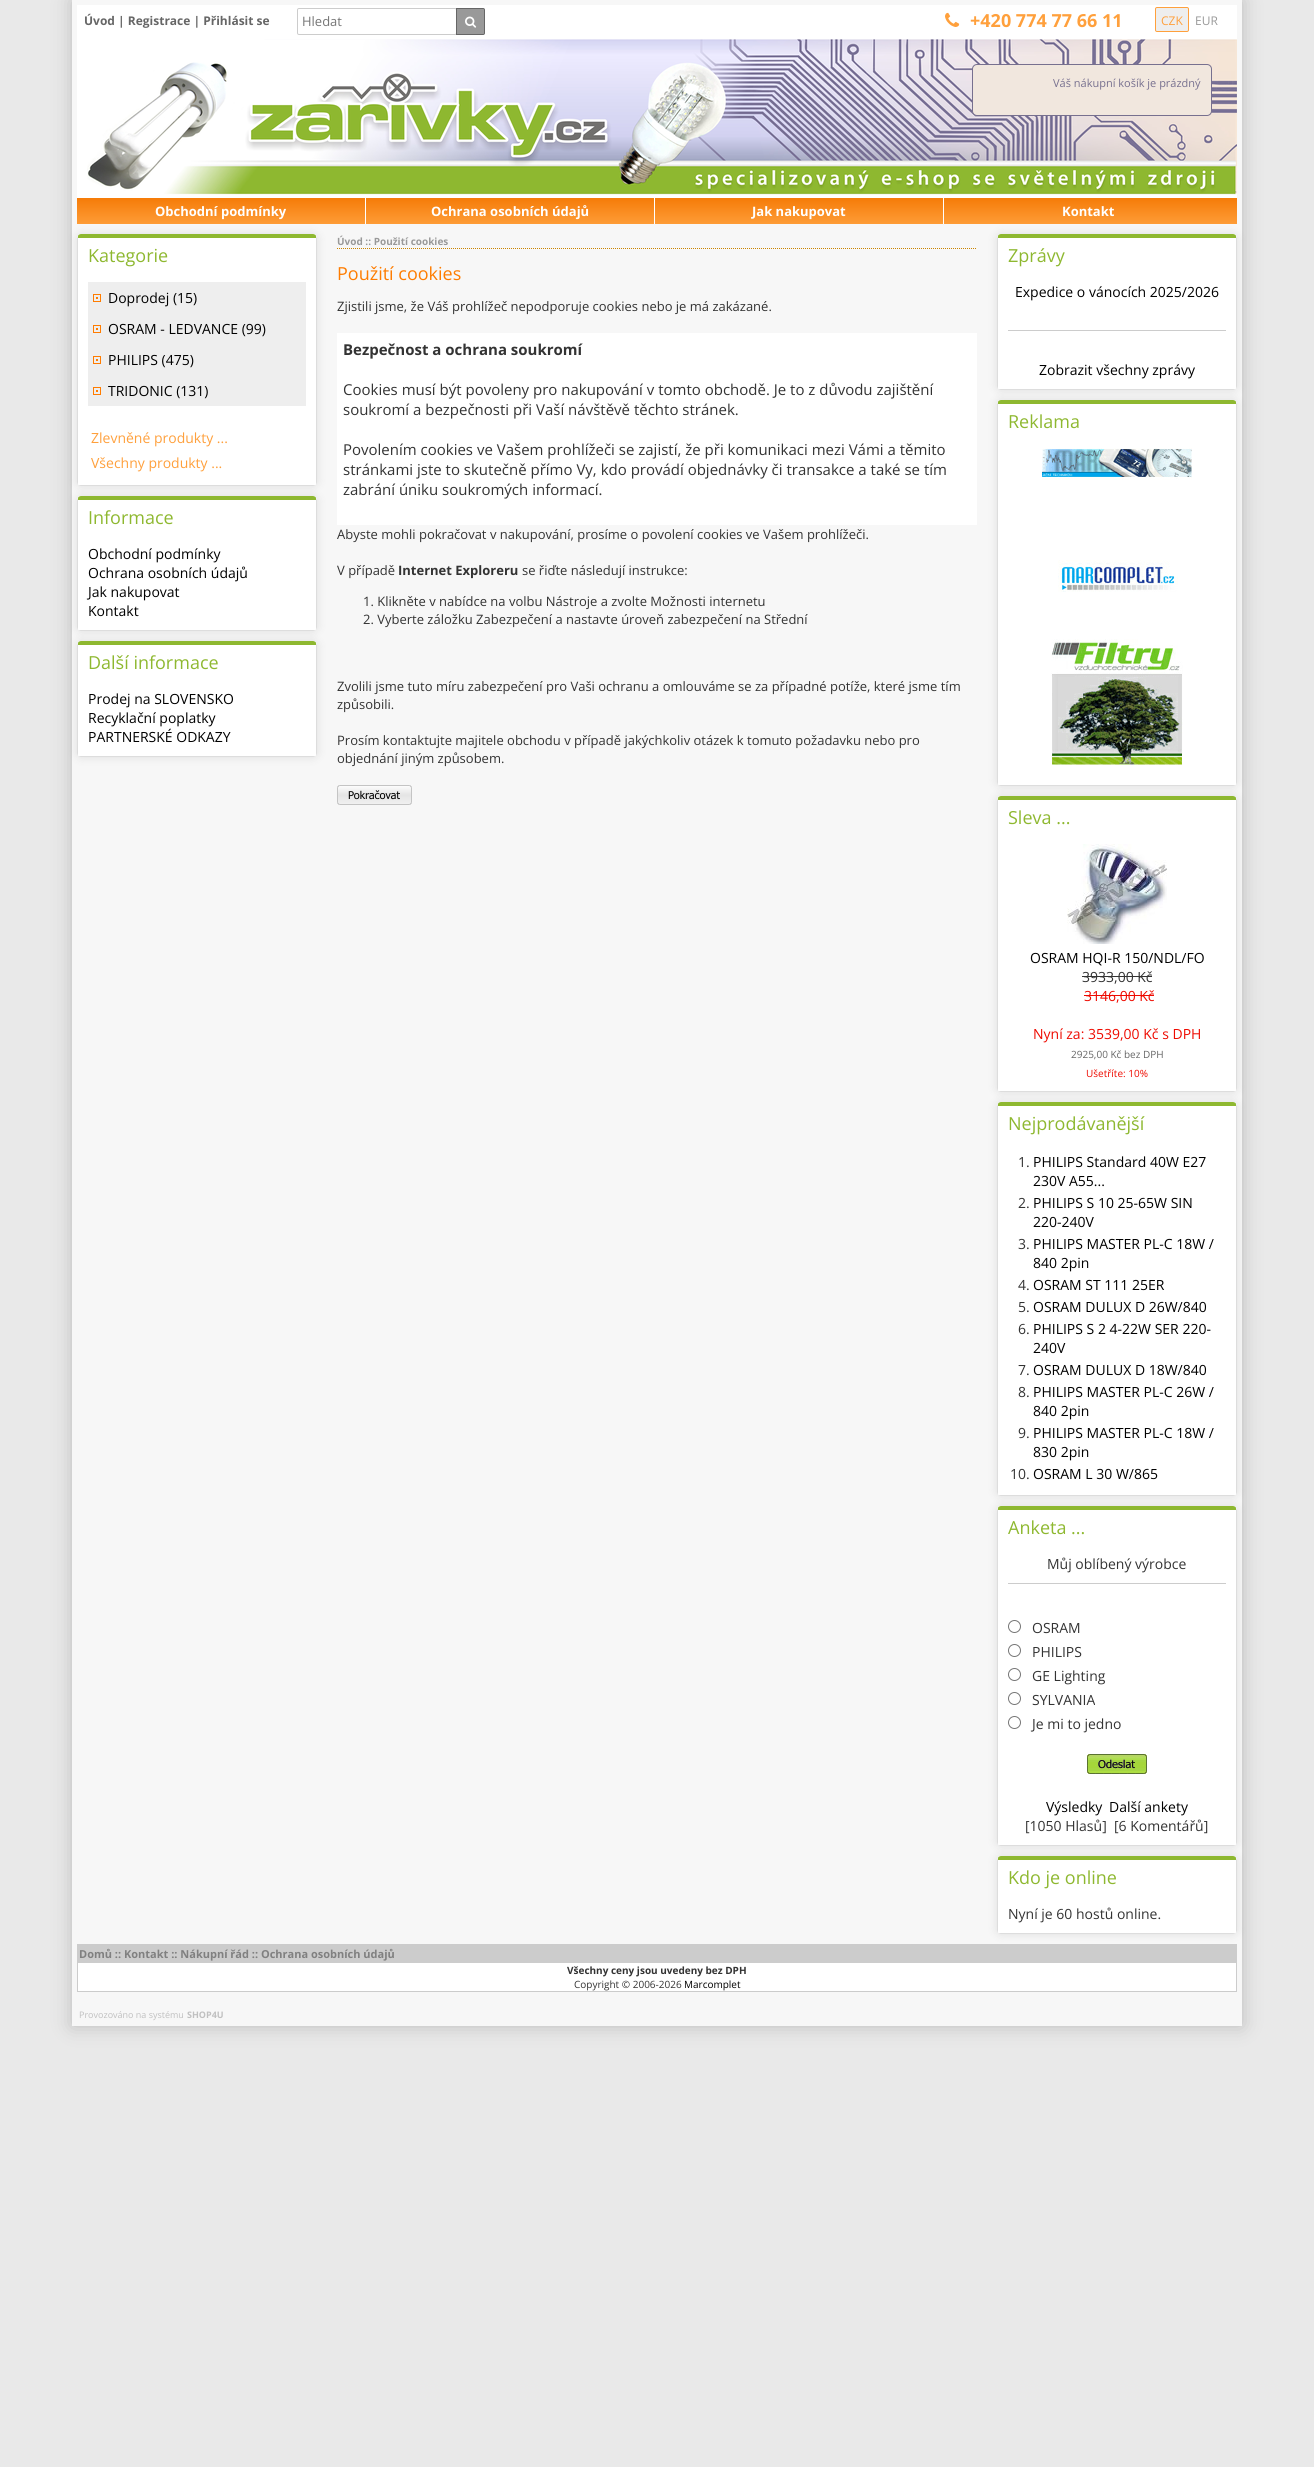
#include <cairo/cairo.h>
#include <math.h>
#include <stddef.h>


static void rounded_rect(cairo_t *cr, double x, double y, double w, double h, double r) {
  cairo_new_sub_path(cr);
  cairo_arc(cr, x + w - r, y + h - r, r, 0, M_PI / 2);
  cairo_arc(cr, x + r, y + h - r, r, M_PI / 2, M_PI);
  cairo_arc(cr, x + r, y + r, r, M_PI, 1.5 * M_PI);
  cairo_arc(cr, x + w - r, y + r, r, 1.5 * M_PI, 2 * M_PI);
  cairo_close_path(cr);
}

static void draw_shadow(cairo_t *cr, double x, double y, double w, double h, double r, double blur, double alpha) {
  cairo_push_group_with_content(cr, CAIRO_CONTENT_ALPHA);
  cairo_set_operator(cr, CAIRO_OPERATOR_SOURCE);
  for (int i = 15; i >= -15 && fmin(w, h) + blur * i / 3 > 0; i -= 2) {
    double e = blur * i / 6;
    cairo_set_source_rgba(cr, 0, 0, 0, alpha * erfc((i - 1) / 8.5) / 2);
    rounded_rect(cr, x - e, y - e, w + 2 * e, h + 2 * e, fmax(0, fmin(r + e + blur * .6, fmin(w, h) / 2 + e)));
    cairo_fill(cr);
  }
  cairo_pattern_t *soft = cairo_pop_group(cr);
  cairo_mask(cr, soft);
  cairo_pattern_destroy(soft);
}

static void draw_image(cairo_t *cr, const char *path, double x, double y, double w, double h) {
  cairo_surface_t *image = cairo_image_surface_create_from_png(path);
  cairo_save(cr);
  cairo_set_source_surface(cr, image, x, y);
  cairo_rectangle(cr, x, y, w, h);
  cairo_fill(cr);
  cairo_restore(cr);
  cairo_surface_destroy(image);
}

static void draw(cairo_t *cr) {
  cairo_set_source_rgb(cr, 233 / 255.0, 233 / 255.0, 233 / 255.0);
  cairo_paint(cr);
  cairo_set_source_rgb(cr, 0, 0, 0);
  draw_shadow(cr, 72, 0, 1170, 2026, 0, 10, 0.2);
  cairo_set_source_rgb(cr, 247 / 255.0, 247 / 255.0, 247 / 255.0);
  cairo_rectangle(cr, 72, 0, 1170, 2026);
  cairo_fill(cr);
  cairo_set_source_rgb(cr, 1, 1, 1);
  cairo_rectangle(cr, 77, 5, 1160, 193);
  cairo_fill(cr);
  rounded_rect(cr, 297.5, 8.5, 159, 26, 1.5);
  cairo_set_source_rgb(cr, 204 / 255.0, 204 / 255.0, 204 / 255.0);
  cairo_set_line_width(cr, 1);
  cairo_stroke(cr);
  cairo_set_source_rgb(cr, 153 / 255.0, 153 / 255.0, 153 / 255.0);
  cairo_new_path(cr);
  cairo_move_to(cr, 456.5, 8.5);
  cairo_line_to(cr, 483, 8.5);
  cairo_curve_to(cr, 484, 8.5, 484.5, 9, 484.5, 10);
  cairo_line_to(cr, 484.5, 33);
  cairo_curve_to(cr, 484.5, 34, 484, 34.5, 483, 34.5);
  cairo_line_to(cr, 456.5, 34.5);
  cairo_close_path(cr);
  cairo_fill_preserve(cr);
  cairo_set_source_rgb(cr, 102 / 255.0, 102 / 255.0, 102 / 255.0);
  cairo_stroke(cr);
  draw_image(cr, "images/1.png", 465, 16, 12, 12);
  draw_image(cr, "images/2.png", 945, 12, 15, 15);
  cairo_set_source_rgb(cr, 238 / 255.0, 238 / 255.0, 238 / 255.0);
  rounded_rect(cr, 1155.5, 7.5, 33, 24, 1.5);
  cairo_fill_preserve(cr);
  cairo_set_source_rgb(cr, 1, 160 / 255.0, 60 / 255.0);
  cairo_stroke(cr);
  draw_image(cr, "images/3.png", 87, 39, 1150, 156);
  cairo_set_source_rgb(cr, 241 / 255.0, 231 / 255.0, 222 / 255.0);
  rounded_rect(cr, 972.5, 64.5, 239, 51, 4.5);
  cairo_fill_preserve(cr);
  cairo_set_source_rgb(cr, 119 / 255.0, 112 / 255.0, 143 / 255.0);
  cairo_stroke(cr);
  draw_image(cr, "images/4.png", 77, 198, 1160, 26);
  cairo_set_source_rgb(cr, 1, 1, 1);
  cairo_rectangle(cr, 365, 198, 1, 26);
  cairo_fill(cr);
  cairo_rectangle(cr, 654, 198, 1, 26);
  cairo_fill(cr);
  cairo_rectangle(cr, 943, 198, 1, 26);
  cairo_fill(cr);
  cairo_set_source_rgb(cr, 0, 0, 0);
  draw_shadow(cr, 77, 234, 240, 252, 4, 5, 0.1);
  cairo_set_source_rgb(cr, 1, 1, 1);
  cairo_new_path(cr);
  cairo_move_to(cr, 81, 234);
  cairo_line_to(cr, 313, 234);
  cairo_curve_to(cr, 315, 234, 317, 236, 317, 238);
  cairo_line_to(cr, 317, 272);
  cairo_line_to(cr, 77, 272);
  cairo_line_to(cr, 77, 238);
  cairo_curve_to(cr, 77, 236, 79, 234, 81, 234);
  cairo_close_path(cr);
  cairo_fill(cr);
  cairo_set_source_rgb(cr, 142 / 255.0, 184 / 255.0, 48 / 255.0);
  cairo_new_path(cr);
  cairo_move_to(cr, 81, 234);
  cairo_line_to(cr, 313, 234);
  cairo_curve_to(cr, 314, 234, 316, 235, 316, 236);
  cairo_line_to(cr, 316, 238);
  cairo_line_to(cr, 78, 238);
  cairo_line_to(cr, 78, 236);
  cairo_curve_to(cr, 78, 235, 80, 234, 81, 234);
  cairo_close_path(cr);
  cairo_fill(cr);
  cairo_set_source_rgb(cr, 221 / 255.0, 221 / 255.0, 221 / 255.0);
  cairo_new_path(cr);
  cairo_move_to(cr, 317, 272);
  cairo_line_to(cr, 317, 238);
  cairo_line_to(cr, 316.5, 236);
  cairo_line_to(cr, 316, 238);
  cairo_line_to(cr, 316, 272);
  cairo_close_path(cr);
  cairo_fill(cr);
  cairo_new_path(cr);
  cairo_move_to(cr, 77, 272);
  cairo_line_to(cr, 78, 272);
  cairo_line_to(cr, 78, 238);
  cairo_line_to(cr, 77.5, 236);
  cairo_line_to(cr, 77, 238);
  cairo_close_path(cr);
  cairo_fill(cr);
  cairo_set_source_rgb(cr, 1, 1, 1);
  cairo_new_path(cr);
  cairo_move_to(cr, 77, 272);
  cairo_line_to(cr, 317, 272);
  cairo_line_to(cr, 317, 482);
  cairo_curve_to(cr, 317, 484, 315, 486, 313, 486);
  cairo_line_to(cr, 81, 486);
  cairo_curve_to(cr, 79, 486, 77, 484, 77, 482);
  cairo_close_path(cr);
  cairo_fill(cr);
  cairo_save(cr);
  rounded_rect(cr, 77, 234, 240, 252, 4);
  cairo_clip(cr);
  cairo_set_source_rgb(cr, 221 / 255.0, 221 / 255.0, 221 / 255.0);
  cairo_rectangle(cr, 316, 272, 1, 214);
  cairo_fill(cr);
  cairo_rectangle(cr, 77, 485, 240, 1);
  cairo_fill(cr);
  cairo_rectangle(cr, 77, 272, 1, 214);
  cairo_fill(cr);
  cairo_restore(cr);
  cairo_set_source_rgb(cr, 238 / 255.0, 238 / 255.0, 238 / 255.0);
  cairo_rectangle(cr, 88, 282, 218, 124);
  cairo_fill(cr);
  draw_image(cr, "images/5.png", 93, 294, 8, 8);
  draw_image(cr, "images/5.png", 93, 325, 8, 8);
  draw_image(cr, "images/5.png", 93, 356, 8, 8);
  draw_image(cr, "images/5.png", 93, 387, 8, 8);
  cairo_set_source_rgb(cr, 0, 0, 0);
  draw_shadow(cr, 77, 496, 240, 135, 4, 5, 0.1);
  cairo_set_source_rgb(cr, 1, 1, 1);
  cairo_new_path(cr);
  cairo_move_to(cr, 81, 496);
  cairo_line_to(cr, 313, 496);
  cairo_curve_to(cr, 315, 496, 317, 498, 317, 500);
  cairo_line_to(cr, 317, 534);
  cairo_line_to(cr, 77, 534);
  cairo_line_to(cr, 77, 500);
  cairo_curve_to(cr, 77, 498, 79, 496, 81, 496);
  cairo_close_path(cr);
  cairo_fill(cr);
  cairo_set_source_rgb(cr, 142 / 255.0, 184 / 255.0, 48 / 255.0);
  cairo_new_path(cr);
  cairo_move_to(cr, 81, 496);
  cairo_line_to(cr, 313, 496);
  cairo_curve_to(cr, 314, 496, 316, 497, 316, 498);
  cairo_line_to(cr, 316, 500);
  cairo_line_to(cr, 78, 500);
  cairo_line_to(cr, 78, 498);
  cairo_curve_to(cr, 78, 497, 80, 496, 81, 496);
  cairo_close_path(cr);
  cairo_fill(cr);
  cairo_set_source_rgb(cr, 221 / 255.0, 221 / 255.0, 221 / 255.0);
  cairo_new_path(cr);
  cairo_move_to(cr, 317, 534);
  cairo_line_to(cr, 317, 500);
  cairo_line_to(cr, 316.5, 498);
  cairo_line_to(cr, 316, 500);
  cairo_line_to(cr, 316, 534);
  cairo_close_path(cr);
  cairo_fill(cr);
  cairo_new_path(cr);
  cairo_move_to(cr, 77, 534);
  cairo_line_to(cr, 78, 534);
  cairo_line_to(cr, 78, 500);
  cairo_line_to(cr, 77.5, 498);
  cairo_line_to(cr, 77, 500);
  cairo_close_path(cr);
  cairo_fill(cr);
  cairo_set_source_rgb(cr, 1, 1, 1);
  cairo_new_path(cr);
  cairo_move_to(cr, 77, 534);
  cairo_line_to(cr, 317, 534);
  cairo_line_to(cr, 317, 627);
  cairo_curve_to(cr, 317, 629, 315, 631, 313, 631);
  cairo_line_to(cr, 81, 631);
  cairo_curve_to(cr, 79, 631, 77, 629, 77, 627);
  cairo_close_path(cr);
  cairo_fill(cr);
  cairo_save(cr);
  rounded_rect(cr, 77, 496, 240, 135, 4);
  cairo_clip(cr);
  cairo_set_source_rgb(cr, 221 / 255.0, 221 / 255.0, 221 / 255.0);
  cairo_rectangle(cr, 316, 534, 1, 97);
  cairo_fill(cr);
  cairo_rectangle(cr, 77, 630, 240, 1);
  cairo_fill(cr);
  cairo_rectangle(cr, 77, 534, 1, 97);
  cairo_fill(cr);
  cairo_restore(cr);
  cairo_set_source_rgb(cr, 0, 0, 0);
  draw_shadow(cr, 77, 641, 240, 116, 4, 5, 0.1);
  cairo_set_source_rgb(cr, 1, 1, 1);
  cairo_new_path(cr);
  cairo_move_to(cr, 81, 641);
  cairo_line_to(cr, 313, 641);
  cairo_curve_to(cr, 315, 641, 317, 643, 317, 645);
  cairo_line_to(cr, 317, 679);
  cairo_line_to(cr, 77, 679);
  cairo_line_to(cr, 77, 645);
  cairo_curve_to(cr, 77, 643, 79, 641, 81, 641);
  cairo_close_path(cr);
  cairo_fill(cr);
  cairo_set_source_rgb(cr, 142 / 255.0, 184 / 255.0, 48 / 255.0);
  cairo_new_path(cr);
  cairo_move_to(cr, 81, 641);
  cairo_line_to(cr, 313, 641);
  cairo_curve_to(cr, 314, 641, 316, 642, 316, 643);
  cairo_line_to(cr, 316, 645);
  cairo_line_to(cr, 78, 645);
  cairo_line_to(cr, 78, 643);
  cairo_curve_to(cr, 78, 642, 80, 641, 81, 641);
  cairo_close_path(cr);
  cairo_fill(cr);
  cairo_set_source_rgb(cr, 221 / 255.0, 221 / 255.0, 221 / 255.0);
  cairo_new_path(cr);
  cairo_move_to(cr, 317, 679);
  cairo_line_to(cr, 317, 645);
  cairo_line_to(cr, 316.5, 643);
  cairo_line_to(cr, 316, 645);
  cairo_line_to(cr, 316, 679);
  cairo_close_path(cr);
  cairo_fill(cr);
  cairo_new_path(cr);
  cairo_move_to(cr, 77, 679);
  cairo_line_to(cr, 78, 679);
  cairo_line_to(cr, 78, 645);
  cairo_line_to(cr, 77.5, 643);
  cairo_line_to(cr, 77, 645);
  cairo_close_path(cr);
  cairo_fill(cr);
  cairo_set_source_rgb(cr, 1, 1, 1);
  cairo_new_path(cr);
  cairo_move_to(cr, 77, 679);
  cairo_line_to(cr, 317, 679);
  cairo_line_to(cr, 317, 753);
  cairo_curve_to(cr, 317, 755, 315, 757, 313, 757);
  cairo_line_to(cr, 81, 757);
  cairo_curve_to(cr, 79, 757, 77, 755, 77, 753);
  cairo_close_path(cr);
  cairo_fill(cr);
  cairo_save(cr);
  rounded_rect(cr, 77, 641, 240, 116, 4);
  cairo_clip(cr);
  cairo_set_source_rgb(cr, 221 / 255.0, 221 / 255.0, 221 / 255.0);
  cairo_rectangle(cr, 316, 679, 1, 78);
  cairo_fill(cr);
  cairo_rectangle(cr, 77, 756, 240, 1);
  cairo_fill(cr);
  cairo_rectangle(cr, 77, 679, 1, 78);
  cairo_fill(cr);
  cairo_restore(cr);
  cairo_new_path(cr);
  cairo_move_to(cr, 337, 248.5);
  cairo_line_to(cr, 977, 248.5);
  cairo_set_source_rgb(cr, 204 / 255.0, 133 / 255.0, 0);
  cairo_set_dash(cr, (double[]){1, 1}, 2, 0);
  cairo_stroke(cr);
  cairo_set_source_rgb(cr, 1, 1, 1);
  cairo_rectangle(cr, 337, 333, 640, 192);
  cairo_fill(cr);
  draw_image(cr, "images/6.png", 337, 785, 75, 20);
  cairo_set_source_rgb(cr, 0, 0, 0);
  draw_shadow(cr, 997, 234, 240, 156, 4, 5, 0.1);
  cairo_set_source_rgb(cr, 1, 1, 1);
  cairo_new_path(cr);
  cairo_move_to(cr, 1001, 234);
  cairo_line_to(cr, 1233, 234);
  cairo_curve_to(cr, 1235, 234, 1237, 236, 1237, 238);
  cairo_line_to(cr, 1237, 272);
  cairo_line_to(cr, 997, 272);
  cairo_line_to(cr, 997, 238);
  cairo_curve_to(cr, 997, 236, 999, 234, 1001, 234);
  cairo_close_path(cr);
  cairo_fill(cr);
  cairo_set_source_rgb(cr, 142 / 255.0, 184 / 255.0, 48 / 255.0);
  cairo_new_path(cr);
  cairo_move_to(cr, 1001, 234);
  cairo_line_to(cr, 1233, 234);
  cairo_curve_to(cr, 1234, 234, 1236, 235, 1236, 236);
  cairo_line_to(cr, 1236, 238);
  cairo_line_to(cr, 998, 238);
  cairo_line_to(cr, 998, 236);
  cairo_curve_to(cr, 998, 235, 1000, 234, 1001, 234);
  cairo_close_path(cr);
  cairo_fill(cr);
  cairo_set_source_rgb(cr, 221 / 255.0, 221 / 255.0, 221 / 255.0);
  cairo_new_path(cr);
  cairo_move_to(cr, 1237, 272);
  cairo_line_to(cr, 1237, 238);
  cairo_line_to(cr, 1236.5, 236);
  cairo_line_to(cr, 1236, 238);
  cairo_line_to(cr, 1236, 272);
  cairo_close_path(cr);
  cairo_fill(cr);
  cairo_new_path(cr);
  cairo_move_to(cr, 997, 272);
  cairo_line_to(cr, 998, 272);
  cairo_line_to(cr, 998, 238);
  cairo_line_to(cr, 997.5, 236);
  cairo_line_to(cr, 997, 238);
  cairo_close_path(cr);
  cairo_fill(cr);
  cairo_set_source_rgb(cr, 1, 1, 1);
  cairo_new_path(cr);
  cairo_move_to(cr, 997, 272);
  cairo_line_to(cr, 1237, 272);
  cairo_line_to(cr, 1237, 386);
  cairo_curve_to(cr, 1237, 388, 1235, 390, 1233, 390);
  cairo_line_to(cr, 1001, 390);
  cairo_curve_to(cr, 999, 390, 997, 388, 997, 386);
  cairo_close_path(cr);
  cairo_fill(cr);
  cairo_save(cr);
  rounded_rect(cr, 997, 234, 240, 156, 4);
  cairo_clip(cr);
  cairo_set_source_rgb(cr, 221 / 255.0, 221 / 255.0, 221 / 255.0);
  cairo_rectangle(cr, 1236, 272, 1, 118);
  cairo_fill(cr);
  cairo_rectangle(cr, 997, 389, 240, 1);
  cairo_fill(cr);
  cairo_rectangle(cr, 997, 272, 1, 118);
  cairo_fill(cr);
  cairo_restore(cr);
  cairo_set_source_rgb(cr, 204 / 255.0, 204 / 255.0, 204 / 255.0);
  cairo_rectangle(cr, 1008, 330, 218, 1);
  cairo_fill(cr);
  cairo_set_source_rgb(cr, 0, 0, 0);
  draw_shadow(cr, 997, 400, 240, 386, 4, 5, 0.1);
  cairo_set_source_rgb(cr, 1, 1, 1);
  cairo_new_path(cr);
  cairo_move_to(cr, 1001, 400);
  cairo_line_to(cr, 1233, 400);
  cairo_curve_to(cr, 1235, 400, 1237, 402, 1237, 404);
  cairo_line_to(cr, 1237, 438);
  cairo_line_to(cr, 997, 438);
  cairo_line_to(cr, 997, 404);
  cairo_curve_to(cr, 997, 402, 999, 400, 1001, 400);
  cairo_close_path(cr);
  cairo_fill(cr);
  cairo_set_source_rgb(cr, 142 / 255.0, 184 / 255.0, 48 / 255.0);
  cairo_new_path(cr);
  cairo_move_to(cr, 1001, 400);
  cairo_line_to(cr, 1233, 400);
  cairo_curve_to(cr, 1234, 400, 1236, 401, 1236, 402);
  cairo_line_to(cr, 1236, 404);
  cairo_line_to(cr, 998, 404);
  cairo_line_to(cr, 998, 402);
  cairo_curve_to(cr, 998, 401, 1000, 400, 1001, 400);
  cairo_close_path(cr);
  cairo_fill(cr);
  cairo_set_source_rgb(cr, 221 / 255.0, 221 / 255.0, 221 / 255.0);
  cairo_new_path(cr);
  cairo_move_to(cr, 1237, 438);
  cairo_line_to(cr, 1237, 404);
  cairo_line_to(cr, 1236.5, 402);
  cairo_line_to(cr, 1236, 404);
  cairo_line_to(cr, 1236, 438);
  cairo_close_path(cr);
  cairo_fill(cr);
  cairo_new_path(cr);
  cairo_move_to(cr, 997, 438);
  cairo_line_to(cr, 998, 438);
  cairo_line_to(cr, 998, 404);
  cairo_line_to(cr, 997.5, 402);
  cairo_line_to(cr, 997, 404);
  cairo_close_path(cr);
  cairo_fill(cr);
  cairo_set_source_rgb(cr, 1, 1, 1);
  cairo_new_path(cr);
  cairo_move_to(cr, 997, 438);
  cairo_line_to(cr, 1237, 438);
  cairo_line_to(cr, 1237, 782);
  cairo_curve_to(cr, 1237, 784, 1235, 786, 1233, 786);
  cairo_line_to(cr, 1001, 786);
  cairo_curve_to(cr, 999, 786, 997, 784, 997, 782);
  cairo_close_path(cr);
  cairo_fill(cr);
  cairo_save(cr);
  rounded_rect(cr, 997, 400, 240, 386, 4);
  cairo_clip(cr);
  cairo_set_source_rgb(cr, 221 / 255.0, 221 / 255.0, 221 / 255.0);
  cairo_rectangle(cr, 1236, 438, 1, 348);
  cairo_fill(cr);
  cairo_rectangle(cr, 997, 785, 240, 1);
  cairo_fill(cr);
  cairo_rectangle(cr, 997, 438, 1, 348);
  cairo_fill(cr);
  cairo_restore(cr);
  draw_image(cr, "images/7.png", 1042, 448, 150, 144);
  draw_image(cr, "images/8.png", 1051, 639, 132, 126);
  cairo_set_source_rgb(cr, 0, 0, 0);
  draw_shadow(cr, 997, 796, 240, 296, 4, 5, 0.1);
  cairo_set_source_rgb(cr, 1, 1, 1);
  cairo_new_path(cr);
  cairo_move_to(cr, 1001, 796);
  cairo_line_to(cr, 1233, 796);
  cairo_curve_to(cr, 1235, 796, 1237, 798, 1237, 800);
  cairo_line_to(cr, 1237, 834);
  cairo_line_to(cr, 997, 834);
  cairo_line_to(cr, 997, 800);
  cairo_curve_to(cr, 997, 798, 999, 796, 1001, 796);
  cairo_close_path(cr);
  cairo_fill(cr);
  cairo_set_source_rgb(cr, 142 / 255.0, 184 / 255.0, 48 / 255.0);
  cairo_new_path(cr);
  cairo_move_to(cr, 1001, 796);
  cairo_line_to(cr, 1233, 796);
  cairo_curve_to(cr, 1234, 796, 1236, 797, 1236, 798);
  cairo_line_to(cr, 1236, 800);
  cairo_line_to(cr, 998, 800);
  cairo_line_to(cr, 998, 798);
  cairo_curve_to(cr, 998, 797, 1000, 796, 1001, 796);
  cairo_close_path(cr);
  cairo_fill(cr);
  cairo_set_source_rgb(cr, 221 / 255.0, 221 / 255.0, 221 / 255.0);
  cairo_new_path(cr);
  cairo_move_to(cr, 1237, 834);
  cairo_line_to(cr, 1237, 800);
  cairo_line_to(cr, 1236.5, 798);
  cairo_line_to(cr, 1236, 800);
  cairo_line_to(cr, 1236, 834);
  cairo_close_path(cr);
  cairo_fill(cr);
  cairo_new_path(cr);
  cairo_move_to(cr, 997, 834);
  cairo_line_to(cr, 998, 834);
  cairo_line_to(cr, 998, 800);
  cairo_line_to(cr, 997.5, 798);
  cairo_line_to(cr, 997, 800);
  cairo_close_path(cr);
  cairo_fill(cr);
  cairo_set_source_rgb(cr, 1, 1, 1);
  cairo_new_path(cr);
  cairo_move_to(cr, 997, 834);
  cairo_line_to(cr, 1237, 834);
  cairo_line_to(cr, 1237, 1088);
  cairo_curve_to(cr, 1237, 1090, 1235, 1092, 1233, 1092);
  cairo_line_to(cr, 1001, 1092);
  cairo_curve_to(cr, 999, 1092, 997, 1090, 997, 1088);
  cairo_close_path(cr);
  cairo_fill(cr);
  cairo_save(cr);
  rounded_rect(cr, 997, 796, 240, 296, 4);
  cairo_clip(cr);
  cairo_set_source_rgb(cr, 221 / 255.0, 221 / 255.0, 221 / 255.0);
  cairo_rectangle(cr, 1236, 834, 1, 258);
  cairo_fill(cr);
  cairo_rectangle(cr, 997, 1091, 240, 1);
  cairo_fill(cr);
  cairo_rectangle(cr, 997, 834, 1, 258);
  cairo_fill(cr);
  cairo_restore(cr);
  draw_image(cr, "images/9.png", 1067, 844, 100, 100);
  cairo_set_source_rgb(cr, 51 / 255.0, 51 / 255.0, 51 / 255.0);
  cairo_rectangle(cr, 1082, 976, 70, 1);
  cairo_fill(cr);
  cairo_set_source_rgb(cr, 238 / 255.0, 10 / 255.0, 0);
  cairo_rectangle(cr, 1084, 995, 70, 1);
  cairo_fill(cr);
  cairo_set_source_rgb(cr, 0, 0, 0);
  draw_shadow(cr, 997, 1102, 240, 394, 4, 5, 0.1);
  cairo_set_source_rgb(cr, 1, 1, 1);
  cairo_new_path(cr);
  cairo_move_to(cr, 1001, 1102);
  cairo_line_to(cr, 1233, 1102);
  cairo_curve_to(cr, 1235, 1102, 1237, 1104, 1237, 1106);
  cairo_line_to(cr, 1237, 1140);
  cairo_line_to(cr, 997, 1140);
  cairo_line_to(cr, 997, 1106);
  cairo_curve_to(cr, 997, 1104, 999, 1102, 1001, 1102);
  cairo_close_path(cr);
  cairo_fill(cr);
  cairo_set_source_rgb(cr, 142 / 255.0, 184 / 255.0, 48 / 255.0);
  cairo_new_path(cr);
  cairo_move_to(cr, 1001, 1102);
  cairo_line_to(cr, 1233, 1102);
  cairo_curve_to(cr, 1234, 1102, 1236, 1103, 1236, 1104);
  cairo_line_to(cr, 1236, 1106);
  cairo_line_to(cr, 998, 1106);
  cairo_line_to(cr, 998, 1104);
  cairo_curve_to(cr, 998, 1103, 1000, 1102, 1001, 1102);
  cairo_close_path(cr);
  cairo_fill(cr);
  cairo_set_source_rgb(cr, 221 / 255.0, 221 / 255.0, 221 / 255.0);
  cairo_new_path(cr);
  cairo_move_to(cr, 1237, 1140);
  cairo_line_to(cr, 1237, 1106);
  cairo_line_to(cr, 1236.5, 1104);
  cairo_line_to(cr, 1236, 1106);
  cairo_line_to(cr, 1236, 1140);
  cairo_close_path(cr);
  cairo_fill(cr);
  cairo_new_path(cr);
  cairo_move_to(cr, 997, 1140);
  cairo_line_to(cr, 998, 1140);
  cairo_line_to(cr, 998, 1106);
  cairo_line_to(cr, 997.5, 1104);
  cairo_line_to(cr, 997, 1106);
  cairo_close_path(cr);
  cairo_fill(cr);
  cairo_set_source_rgb(cr, 1, 1, 1);
  cairo_new_path(cr);
  cairo_move_to(cr, 997, 1140);
  cairo_line_to(cr, 1237, 1140);
  cairo_line_to(cr, 1237, 1492);
  cairo_curve_to(cr, 1237, 1494, 1235, 1496, 1233, 1496);
  cairo_line_to(cr, 1001, 1496);
  cairo_curve_to(cr, 999, 1496, 997, 1494, 997, 1492);
  cairo_close_path(cr);
  cairo_fill(cr);
  cairo_save(cr);
  rounded_rect(cr, 997, 1102, 240, 394, 4);
  cairo_clip(cr);
  cairo_set_source_rgb(cr, 221 / 255.0, 221 / 255.0, 221 / 255.0);
  cairo_rectangle(cr, 1236, 1140, 1, 356);
  cairo_fill(cr);
  cairo_rectangle(cr, 997, 1495, 240, 1);
  cairo_fill(cr);
  cairo_rectangle(cr, 997, 1140, 1, 356);
  cairo_fill(cr);
  cairo_restore(cr);
  cairo_set_source_rgb(cr, 0, 0, 0);
  draw_shadow(cr, 997, 1506, 240, 340, 4, 5, 0.1);
  cairo_set_source_rgb(cr, 1, 1, 1);
  cairo_new_path(cr);
  cairo_move_to(cr, 1001, 1506);
  cairo_line_to(cr, 1233, 1506);
  cairo_curve_to(cr, 1235, 1506, 1237, 1508, 1237, 1510);
  cairo_line_to(cr, 1237, 1544);
  cairo_line_to(cr, 997, 1544);
  cairo_line_to(cr, 997, 1510);
  cairo_curve_to(cr, 997, 1508, 999, 1506, 1001, 1506);
  cairo_close_path(cr);
  cairo_fill(cr);
  cairo_set_source_rgb(cr, 142 / 255.0, 184 / 255.0, 48 / 255.0);
  cairo_new_path(cr);
  cairo_move_to(cr, 1001, 1506);
  cairo_line_to(cr, 1233, 1506);
  cairo_curve_to(cr, 1234, 1506, 1236, 1507, 1236, 1508);
  cairo_line_to(cr, 1236, 1510);
  cairo_line_to(cr, 998, 1510);
  cairo_line_to(cr, 998, 1508);
  cairo_curve_to(cr, 998, 1507, 1000, 1506, 1001, 1506);
  cairo_close_path(cr);
  cairo_fill(cr);
  cairo_set_source_rgb(cr, 221 / 255.0, 221 / 255.0, 221 / 255.0);
  cairo_new_path(cr);
  cairo_move_to(cr, 1237, 1544);
  cairo_line_to(cr, 1237, 1510);
  cairo_line_to(cr, 1236.5, 1508);
  cairo_line_to(cr, 1236, 1510);
  cairo_line_to(cr, 1236, 1544);
  cairo_close_path(cr);
  cairo_fill(cr);
  cairo_new_path(cr);
  cairo_move_to(cr, 997, 1544);
  cairo_line_to(cr, 998, 1544);
  cairo_line_to(cr, 998, 1510);
  cairo_line_to(cr, 997.5, 1508);
  cairo_line_to(cr, 997, 1510);
  cairo_close_path(cr);
  cairo_fill(cr);
  cairo_set_source_rgb(cr, 1, 1, 1);
  cairo_new_path(cr);
  cairo_move_to(cr, 997, 1544);
  cairo_line_to(cr, 1237, 1544);
  cairo_line_to(cr, 1237, 1842);
  cairo_curve_to(cr, 1237, 1844, 1235, 1846, 1233, 1846);
  cairo_line_to(cr, 1001, 1846);
  cairo_curve_to(cr, 999, 1846, 997, 1844, 997, 1842);
  cairo_close_path(cr);
  cairo_fill(cr);
  cairo_save(cr);
  rounded_rect(cr, 997, 1506, 240, 340, 4);
  cairo_clip(cr);
  cairo_set_source_rgb(cr, 221 / 255.0, 221 / 255.0, 221 / 255.0);
  cairo_rectangle(cr, 1236, 1544, 1, 302);
  cairo_fill(cr);
  cairo_rectangle(cr, 997, 1845, 240, 1);
  cairo_fill(cr);
  cairo_rectangle(cr, 997, 1544, 1, 302);
  cairo_fill(cr);
  cairo_restore(cr);
  cairo_set_source_rgb(cr, 204 / 255.0, 204 / 255.0, 204 / 255.0);
  cairo_rectangle(cr, 1008, 1583, 218, 1);
  cairo_fill(cr);
  cairo_arc(cr, 1014.5, 1626.5, 6, 0, 2 * M_PI);
  cairo_set_source_rgb(cr, 118 / 255.0, 118 / 255.0, 118 / 255.0);
  cairo_set_dash(cr, NULL, 0, 0);
  cairo_stroke(cr);
  cairo_arc(cr, 1014.5, 1650.5, 6, 0, 2 * M_PI);
  cairo_stroke(cr);
  cairo_arc(cr, 1014.5, 1674.5, 6, 0, 2 * M_PI);
  cairo_stroke(cr);
  cairo_arc(cr, 1014.5, 1698.5, 6, 0, 2 * M_PI);
  cairo_stroke(cr);
  cairo_arc(cr, 1014.5, 1722.5, 6, 0, 2 * M_PI);
  cairo_stroke(cr);
  draw_image(cr, "images/10.png", 1087, 1754, 60, 20);
  cairo_set_source_rgb(cr, 204 / 255.0, 204 / 255.0, 204 / 255.0);
  cairo_rectangle(cr, 77, 1944, 1160, 19);
  cairo_fill(cr);
  cairo_set_source_rgb(cr, 0, 0, 0);
  draw_shadow(cr, 997, 1856, 240, 78, 4, 5, 0.1);
  cairo_set_source_rgb(cr, 1, 1, 1);
  cairo_new_path(cr);
  cairo_move_to(cr, 1001, 1856);
  cairo_line_to(cr, 1233, 1856);
  cairo_curve_to(cr, 1235, 1856, 1237, 1858, 1237, 1860);
  cairo_line_to(cr, 1237, 1894);
  cairo_line_to(cr, 997, 1894);
  cairo_line_to(cr, 997, 1860);
  cairo_curve_to(cr, 997, 1858, 999, 1856, 1001, 1856);
  cairo_close_path(cr);
  cairo_fill(cr);
  cairo_set_source_rgb(cr, 142 / 255.0, 184 / 255.0, 48 / 255.0);
  cairo_new_path(cr);
  cairo_move_to(cr, 1001, 1856);
  cairo_line_to(cr, 1233, 1856);
  cairo_curve_to(cr, 1234, 1856, 1236, 1857, 1236, 1858);
  cairo_line_to(cr, 1236, 1860);
  cairo_line_to(cr, 998, 1860);
  cairo_line_to(cr, 998, 1858);
  cairo_curve_to(cr, 998, 1857, 1000, 1856, 1001, 1856);
  cairo_close_path(cr);
  cairo_fill(cr);
  cairo_set_source_rgb(cr, 221 / 255.0, 221 / 255.0, 221 / 255.0);
  cairo_new_path(cr);
  cairo_move_to(cr, 1237, 1894);
  cairo_line_to(cr, 1237, 1860);
  cairo_line_to(cr, 1236.5, 1858);
  cairo_line_to(cr, 1236, 1860);
  cairo_line_to(cr, 1236, 1894);
  cairo_close_path(cr);
  cairo_fill(cr);
  cairo_new_path(cr);
  cairo_move_to(cr, 997, 1894);
  cairo_line_to(cr, 998, 1894);
  cairo_line_to(cr, 998, 1860);
  cairo_line_to(cr, 997.5, 1858);
  cairo_line_to(cr, 997, 1860);
  cairo_close_path(cr);
  cairo_fill(cr);
  cairo_set_source_rgb(cr, 1, 1, 1);
  cairo_new_path(cr);
  cairo_move_to(cr, 997, 1894);
  cairo_line_to(cr, 1237, 1894);
  cairo_line_to(cr, 1237, 1930);
  cairo_curve_to(cr, 1237, 1932, 1235, 1934, 1233, 1934);
  cairo_line_to(cr, 1001, 1934);
  cairo_curve_to(cr, 999, 1934, 997, 1932, 997, 1930);
  cairo_close_path(cr);
  cairo_fill(cr);
  cairo_save(cr);
  rounded_rect(cr, 997, 1856, 240, 78, 4);
  cairo_clip(cr);
  cairo_set_source_rgb(cr, 221 / 255.0, 221 / 255.0, 221 / 255.0);
  cairo_rectangle(cr, 1236, 1894, 1, 40);
  cairo_fill(cr);
  cairo_rectangle(cr, 997, 1933, 240, 1);
  cairo_fill(cr);
  cairo_rectangle(cr, 997, 1894, 1, 40);
  cairo_fill(cr);
  cairo_restore(cr);
  cairo_rectangle(cr, 78, 1963, 1158, 28);
  cairo_fill(cr);
  cairo_set_source_rgb(cr, 204 / 255.0, 204 / 255.0, 204 / 255.0);
  cairo_rectangle(cr, 1236, 1963, 1, 29);
  cairo_fill(cr);
  cairo_rectangle(cr, 77, 1991, 1160, 1);
  cairo_fill(cr);
  cairo_rectangle(cr, 77, 1963, 1, 29);
  cairo_fill(cr);
  cairo_select_font_face(cr, "Open Sans", CAIRO_FONT_SLANT_NORMAL, CAIRO_FONT_WEIGHT_BOLD);
  cairo_set_font_size(cr, 12);
  cairo_set_source_rgb(cr, 102 / 255.0, 102 / 255.0, 102 / 255.0);
  cairo_move_to(cr, 84, 25);
  cairo_show_text(cr, "Úvod | Registrace | Přihlásit se");
  cairo_select_font_face(cr, "Open Sans", CAIRO_FONT_SLANT_NORMAL, CAIRO_FONT_WEIGHT_NORMAL);
  cairo_set_font_size(cr, 13);
  cairo_set_source_rgb(cr, 117 / 255.0, 117 / 255.0, 117 / 255.0);
  cairo_move_to(cr, 302, 26);
  cairo_show_text(cr, "Hledat");
  cairo_select_font_face(cr, "Open Sans", CAIRO_FONT_SLANT_NORMAL, CAIRO_FONT_WEIGHT_BOLD);
  cairo_set_font_size(cr, 18);
  cairo_set_source_rgb(cr, 1, 160 / 255.0, 60 / 255.0);
  cairo_move_to(cr, 970, 27);
  cairo_show_text(cr, "+420 774 77 66 11");
  cairo_select_font_face(cr, "Open Sans", CAIRO_FONT_SLANT_NORMAL, CAIRO_FONT_WEIGHT_NORMAL);
  cairo_set_font_size(cr, 12);
  cairo_move_to(cr, 1161, 25);
  cairo_show_text(cr, "CZK");
  cairo_set_source_rgb(cr, 153 / 255.0, 153 / 255.0, 153 / 255.0);
  cairo_move_to(cr, 1195, 25);
  cairo_show_text(cr, "EUR");
  cairo_set_font_size(cr, 11);
  cairo_set_source_rgb(cr, 119 / 255.0, 112 / 255.0, 143 / 255.0);
  cairo_move_to(cr, 1053, 87);
  cairo_show_text(cr, "Váš nákupní košík je prázdný");
  cairo_select_font_face(cr, "Open Sans", CAIRO_FONT_SLANT_NORMAL, CAIRO_FONT_WEIGHT_BOLD);
  cairo_set_font_size(cr, 13);
  cairo_set_source_rgb(cr, 1, 1, 1);
  cairo_move_to(cr, 155, 216);
  cairo_show_text(cr, "Obchodní podmínky");
  cairo_move_to(cr, 431, 216);
  cairo_show_text(cr, "Ochrana osobních údajů");
  cairo_move_to(cr, 752, 216);
  cairo_show_text(cr, "Jak nakupovat");
  cairo_move_to(cr, 1062, 216);
  cairo_show_text(cr, "Kontakt");
  cairo_select_font_face(cr, "Open Sans", CAIRO_FONT_SLANT_NORMAL, CAIRO_FONT_WEIGHT_NORMAL);
  cairo_set_font_size(cr, 18);
  cairo_set_source_rgb(cr, 142 / 255.0, 184 / 255.0, 48 / 255.0);
  cairo_move_to(cr, 88, 262);
  cairo_show_text(cr, "Kategorie");
  cairo_set_font_size(cr, 14);
  cairo_set_source_rgb(cr, 0, 0, 0);
  cairo_move_to(cr, 108, 303);
  cairo_show_text(cr, "Doprodej (15)");
  cairo_move_to(cr, 108, 334);
  cairo_show_text(cr, "OSRAM - LEDVANCE (99)");
  cairo_move_to(cr, 108, 365);
  cairo_show_text(cr, "PHILIPS (475)");
  cairo_move_to(cr, 108, 396);
  cairo_show_text(cr, "TRIDONIC (131)");
  cairo_set_source_rgb(cr, 1, 160 / 255.0, 60 / 255.0);
  cairo_move_to(cr, 91, 443);
  cairo_show_text(cr, "Zlevněné produkty ...");
  cairo_move_to(cr, 91, 468);
  cairo_show_text(cr, "Všechny produkty ...");
  cairo_set_font_size(cr, 18);
  cairo_set_source_rgb(cr, 142 / 255.0, 184 / 255.0, 48 / 255.0);
  cairo_move_to(cr, 88, 524);
  cairo_show_text(cr, "Informace");
  cairo_set_font_size(cr, 14);
  cairo_set_source_rgb(cr, 0, 0, 0);
  cairo_move_to(cr, 88, 559);
  cairo_show_text(cr, "Obchodní podmínky");
  cairo_move_to(cr, 88, 578);
  cairo_show_text(cr, "Ochrana osobních údajů");
  cairo_move_to(cr, 88, 597);
  cairo_show_text(cr, "Jak nakupovat");
  cairo_move_to(cr, 88, 616);
  cairo_show_text(cr, "Kontakt");
  cairo_set_font_size(cr, 18);
  cairo_set_source_rgb(cr, 142 / 255.0, 184 / 255.0, 48 / 255.0);
  cairo_move_to(cr, 88, 669);
  cairo_show_text(cr, "Další informace");
  cairo_set_font_size(cr, 14);
  cairo_set_source_rgb(cr, 0, 0, 0);
  cairo_move_to(cr, 88, 704);
  cairo_show_text(cr, "Prodej na SLOVENSKO");
  cairo_move_to(cr, 88, 723);
  cairo_show_text(cr, "Recyklační poplatky");
  cairo_move_to(cr, 88, 742);
  cairo_show_text(cr, "PARTNERSKÉ ODKAZY");
  cairo_select_font_face(cr, "Open Sans", CAIRO_FONT_SLANT_NORMAL, CAIRO_FONT_WEIGHT_BOLD);
  cairo_set_font_size(cr, 10);
  cairo_set_source_rgb(cr, 153 / 255.0, 153 / 255.0, 153 / 255.0);
  cairo_move_to(cr, 337, 245);
  cairo_show_text(cr, "Úvod :: Použití cookies");
  cairo_select_font_face(cr, "Open Sans", CAIRO_FONT_SLANT_NORMAL, CAIRO_FONT_WEIGHT_NORMAL);
  cairo_set_font_size(cr, 18);
  cairo_set_source_rgb(cr, 254 / 255.0, 124 / 255.0, 0);
  cairo_move_to(cr, 337, 280);
  cairo_show_text(cr, "Použití cookies");
  cairo_set_font_size(cr, 13);
  cairo_set_source_rgb(cr, 51 / 255.0, 51 / 255.0, 51 / 255.0);
  cairo_move_to(cr, 337, 311);
  cairo_show_text(cr, "Zjistili jsme, že Váš prohlížeč nepodporuje cookies nebo je má zakázané.");
  cairo_select_font_face(cr, "Open Sans", CAIRO_FONT_SLANT_NORMAL, CAIRO_FONT_WEIGHT_BOLD);
  cairo_set_font_size(cr, 15);
  cairo_move_to(cr, 343, 355);
  cairo_show_text(cr, "Bezpečnost a ochrana soukromí");
  cairo_select_font_face(cr, "Open Sans", CAIRO_FONT_SLANT_NORMAL, CAIRO_FONT_WEIGHT_NORMAL);
  cairo_move_to(cr, 343, 395);
  cairo_show_text(cr, "Cookies musí být povoleny pro nakupování v tomto obchodě. Je to z důvodu zajištění");
  cairo_move_to(cr, 343, 415);
  cairo_show_text(cr, "soukromí a bezpečnosti při Vaší návštěvě těchto stránek.");
  cairo_move_to(cr, 343, 455);
  cairo_show_text(cr, "Povolením cookies ve Vašem prohlížeči se zajistí, že při komunikaci mezi Vámi a těmito");
  cairo_move_to(cr, 343, 475);
  cairo_show_text(cr, "stránkami jste to skutečně přímo Vy, kdo provádí objednávky či transakce a také se tím");
  cairo_move_to(cr, 343, 495);
  cairo_show_text(cr, "zabrání úniku soukromých informací.");
  cairo_set_font_size(cr, 13);
  cairo_move_to(cr, 337, 539);
  cairo_show_text(cr, "Abyste mohli pokračovat v nakupování, prosíme o povolení cookies ve Vašem prohlížeči.");
  cairo_move_to(cr, 337, 575);
  cairo_show_text(cr, "V případě");
  cairo_select_font_face(cr, "Open Sans", CAIRO_FONT_SLANT_NORMAL, CAIRO_FONT_WEIGHT_BOLD);
  cairo_move_to(cr, 398, 575);
  cairo_show_text(cr, "Internet Exploreru");
  cairo_select_font_face(cr, "Open Sans", CAIRO_FONT_SLANT_NORMAL, CAIRO_FONT_WEIGHT_NORMAL);
  cairo_move_to(cr, 522, 575);
  cairo_show_text(cr, "se řiďte následují instrukce:");
  cairo_move_to(cr, 363, 606);
  cairo_show_text(cr, "1. Klikněte v nabídce na volbu Nástroje a zvolte Možnosti internetu");
  cairo_move_to(cr, 363, 624);
  cairo_show_text(cr, "2. Vyberte záložku Zabezpečení a nastavte úroveň zabezpečení na Střední");
  cairo_move_to(cr, 337, 691);
  cairo_show_text(cr, "Zvolili jsme tuto míru zabezpečení pro Vaši ochranu a omlouváme se za případné potíže, které jsme tím");
  cairo_move_to(cr, 337, 709);
  cairo_show_text(cr, "způsobili.");
  cairo_move_to(cr, 337, 745);
  cairo_show_text(cr, "Prosím kontaktujte majitele obchodu v případě jakýchkoliv otázek k tomuto požadavku nebo pro");
  cairo_move_to(cr, 337, 763);
  cairo_show_text(cr, "objednání jiným způsobem.");
  cairo_set_font_size(cr, 18);
  cairo_set_source_rgb(cr, 142 / 255.0, 184 / 255.0, 48 / 255.0);
  cairo_move_to(cr, 1008, 262);
  cairo_show_text(cr, "Zprávy");
  cairo_set_font_size(cr, 14);
  cairo_set_source_rgb(cr, 0, 0, 0);
  cairo_move_to(cr, 1015, 297);
  cairo_show_text(cr, "Expedice o vánocích 2025/2026");
  cairo_move_to(cr, 1039, 375);
  cairo_show_text(cr, "Zobrazit všechny zprávy");
  cairo_set_font_size(cr, 18);
  cairo_set_source_rgb(cr, 142 / 255.0, 184 / 255.0, 48 / 255.0);
  cairo_move_to(cr, 1008, 428);
  cairo_show_text(cr, "Reklama");
  cairo_move_to(cr, 1008, 824);
  cairo_show_text(cr, "Sleva ...");
  cairo_set_font_size(cr, 14);
  cairo_set_source_rgb(cr, 0, 0, 0);
  cairo_move_to(cr, 1030, 963);
  cairo_show_text(cr, "OSRAM HQI-R 150/NDL/FO");
  cairo_set_source_rgb(cr, 51 / 255.0, 51 / 255.0, 51 / 255.0);
  cairo_move_to(cr, 1082, 982);
  cairo_show_text(cr, "3933,00 Kč");
  cairo_set_source_rgb(cr, 238 / 255.0, 10 / 255.0, 0);
  cairo_move_to(cr, 1084, 1001);
  cairo_show_text(cr, "3146,00 Kč");
  cairo_move_to(cr, 1033, 1039);
  cairo_show_text(cr, "Nyní za: 3539,00 Kč s DPH");
  cairo_set_font_size(cr, 10);
  cairo_set_source_rgb(cr, 102 / 255.0, 102 / 255.0, 102 / 255.0);
  cairo_move_to(cr, 1071, 1058);
  cairo_show_text(cr, "2925,00 Kč bez DPH");
  cairo_set_source_rgb(cr, 238 / 255.0, 10 / 255.0, 0);
  cairo_move_to(cr, 1086, 1077);
  cairo_show_text(cr, "Ušetříte: 10%");
  cairo_set_font_size(cr, 18);
  cairo_set_source_rgb(cr, 142 / 255.0, 184 / 255.0, 48 / 255.0);
  cairo_move_to(cr, 1008, 1130);
  cairo_show_text(cr, "Nejprodávanější");
  cairo_set_font_size(cr, 14);
  cairo_set_source_rgb(cr, 51 / 255.0, 51 / 255.0, 51 / 255.0);
  cairo_move_to(cr, 1018, 1167);
  cairo_show_text(cr, "1.");
  cairo_set_source_rgb(cr, 0, 0, 0);
  cairo_move_to(cr, 1033, 1167);
  cairo_show_text(cr, "PHILIPS Standard 40W E27");
  cairo_move_to(cr, 1033, 1186);
  cairo_show_text(cr, "230V A55...");
  cairo_set_source_rgb(cr, 51 / 255.0, 51 / 255.0, 51 / 255.0);
  cairo_move_to(cr, 1018, 1208);
  cairo_show_text(cr, "2.");
  cairo_set_source_rgb(cr, 0, 0, 0);
  cairo_move_to(cr, 1033, 1208);
  cairo_show_text(cr, "PHILIPS S 10 25-65W SIN");
  cairo_move_to(cr, 1033, 1227);
  cairo_show_text(cr, "220-240V");
  cairo_set_source_rgb(cr, 51 / 255.0, 51 / 255.0, 51 / 255.0);
  cairo_move_to(cr, 1018, 1249);
  cairo_show_text(cr, "3.");
  cairo_set_source_rgb(cr, 0, 0, 0);
  cairo_move_to(cr, 1033, 1249);
  cairo_show_text(cr, "PHILIPS MASTER PL-C 18W /");
  cairo_move_to(cr, 1033, 1268);
  cairo_show_text(cr, "840 2pin");
  cairo_set_source_rgb(cr, 51 / 255.0, 51 / 255.0, 51 / 255.0);
  cairo_move_to(cr, 1018, 1290);
  cairo_show_text(cr, "4.");
  cairo_set_source_rgb(cr, 0, 0, 0);
  cairo_move_to(cr, 1033, 1290);
  cairo_show_text(cr, "OSRAM ST 111 25ER");
  cairo_set_source_rgb(cr, 51 / 255.0, 51 / 255.0, 51 / 255.0);
  cairo_move_to(cr, 1018, 1312);
  cairo_show_text(cr, "5.");
  cairo_set_source_rgb(cr, 0, 0, 0);
  cairo_move_to(cr, 1033, 1312);
  cairo_show_text(cr, "OSRAM DULUX D 26W/840");
  cairo_set_source_rgb(cr, 51 / 255.0, 51 / 255.0, 51 / 255.0);
  cairo_move_to(cr, 1018, 1334);
  cairo_show_text(cr, "6.");
  cairo_set_source_rgb(cr, 0, 0, 0);
  cairo_move_to(cr, 1033, 1334);
  cairo_show_text(cr, "PHILIPS S 2 4-22W SER 220-");
  cairo_move_to(cr, 1033, 1353);
  cairo_show_text(cr, "240V");
  cairo_set_source_rgb(cr, 51 / 255.0, 51 / 255.0, 51 / 255.0);
  cairo_move_to(cr, 1018, 1375);
  cairo_show_text(cr, "7.");
  cairo_set_source_rgb(cr, 0, 0, 0);
  cairo_move_to(cr, 1033, 1375);
  cairo_show_text(cr, "OSRAM DULUX D 18W/840");
  cairo_set_source_rgb(cr, 51 / 255.0, 51 / 255.0, 51 / 255.0);
  cairo_move_to(cr, 1018, 1397);
  cairo_show_text(cr, "8.");
  cairo_set_source_rgb(cr, 0, 0, 0);
  cairo_move_to(cr, 1033, 1397);
  cairo_show_text(cr, "PHILIPS MASTER PL-C 26W /");
  cairo_move_to(cr, 1033, 1416);
  cairo_show_text(cr, "840 2pin");
  cairo_set_source_rgb(cr, 51 / 255.0, 51 / 255.0, 51 / 255.0);
  cairo_move_to(cr, 1018, 1438);
  cairo_show_text(cr, "9.");
  cairo_set_source_rgb(cr, 0, 0, 0);
  cairo_move_to(cr, 1033, 1438);
  cairo_show_text(cr, "PHILIPS MASTER PL-C 18W /");
  cairo_move_to(cr, 1033, 1457);
  cairo_show_text(cr, "830 2pin");
  cairo_set_source_rgb(cr, 51 / 255.0, 51 / 255.0, 51 / 255.0);
  cairo_move_to(cr, 1010, 1479);
  cairo_show_text(cr, "10.");
  cairo_set_source_rgb(cr, 0, 0, 0);
  cairo_move_to(cr, 1033, 1479);
  cairo_show_text(cr, "OSRAM L 30 W/865");
  cairo_set_font_size(cr, 18);
  cairo_set_source_rgb(cr, 142 / 255.0, 184 / 255.0, 48 / 255.0);
  cairo_move_to(cr, 1008, 1534);
  cairo_show_text(cr, "Anketa ...");
  cairo_set_font_size(cr, 14);
  cairo_set_source_rgb(cr, 51 / 255.0, 51 / 255.0, 51 / 255.0);
  cairo_move_to(cr, 1047, 1569);
  cairo_show_text(cr, "Můj oblíbený výrobce");
  cairo_move_to(cr, 1032, 1633);
  cairo_show_text(cr, "OSRAM");
  cairo_move_to(cr, 1032, 1657);
  cairo_show_text(cr, "PHILIPS");
  cairo_move_to(cr, 1032, 1681);
  cairo_show_text(cr, "GE Lighting");
  cairo_move_to(cr, 1032, 1705);
  cairo_show_text(cr, "SYLVANIA");
  cairo_move_to(cr, 1032, 1729);
  cairo_show_text(cr, "Je mi to jedno");
  cairo_set_source_rgb(cr, 0, 0, 0);
  cairo_move_to(cr, 1046, 1812);
  cairo_show_text(cr, "Výsledky");
  cairo_move_to(cr, 1109, 1812);
  cairo_show_text(cr, "Další ankety");
  cairo_set_source_rgb(cr, 51 / 255.0, 51 / 255.0, 51 / 255.0);
  cairo_move_to(cr, 1025, 1831);
  cairo_show_text(cr, "[1050 Hlasů]  [6 Komentářů]");
  cairo_set_font_size(cr, 18);
  cairo_set_source_rgb(cr, 142 / 255.0, 184 / 255.0, 48 / 255.0);
  cairo_move_to(cr, 1008, 1884);
  cairo_show_text(cr, "Kdo je online");
  cairo_set_font_size(cr, 14);
  cairo_set_source_rgb(cr, 51 / 255.0, 51 / 255.0, 51 / 255.0);
  cairo_move_to(cr, 1008, 1919);
  cairo_show_text(cr, "Nyní je 60 hostů online.");
  cairo_select_font_face(cr, "Open Sans", CAIRO_FONT_SLANT_NORMAL, CAIRO_FONT_WEIGHT_BOLD);
  cairo_set_font_size(cr, 11);
  cairo_set_source_rgb(cr, 128 / 255.0, 128 / 255.0, 128 / 255.0);
  cairo_move_to(cr, 79, 1958);
  cairo_show_text(cr, "Domů :: Kontakt :: Nákupní řád :: Ochrana osobních údajů");
  cairo_set_font_size(cr, 10);
  cairo_set_source_rgb(cr, 51 / 255.0, 51 / 255.0, 51 / 255.0);
  cairo_move_to(cr, 567, 1974);
  cairo_show_text(cr, "Všechny ceny jsou uvedeny bez DPH");
  cairo_select_font_face(cr, "Open Sans", CAIRO_FONT_SLANT_NORMAL, CAIRO_FONT_WEIGHT_NORMAL);
  cairo_move_to(cr, 574, 1988);
  cairo_show_text(cr, "Copyright © 2006-2026");
  cairo_set_source_rgb(cr, 0, 0, 0);
  cairo_move_to(cr, 684, 1988);
  cairo_show_text(cr, "Marcomplet");
  cairo_set_font_size(cr, 9);
  cairo_set_source_rgb(cr, 192 / 255.0, 192 / 255.0, 192 / 255.0);
  cairo_move_to(cr, 79, 2018);
  cairo_show_text(cr, "Provozováno na systému");
  cairo_select_font_face(cr, "Open Sans", CAIRO_FONT_SLANT_NORMAL, CAIRO_FONT_WEIGHT_BOLD);
  cairo_move_to(cr, 187, 2018);
  cairo_show_text(cr, "SHOP4U");
}

int main(void) {
  cairo_surface_t *surface = cairo_image_surface_create(CAIRO_FORMAT_RGB24, 1314, 2467);
  cairo_t *cr = cairo_create(surface);
  cairo_font_options_t *options = cairo_font_options_create();
  cairo_font_options_set_hint_metrics(options, CAIRO_HINT_METRICS_OFF);
  cairo_font_options_set_hint_style(options, CAIRO_HINT_STYLE_NONE);
  cairo_set_font_options(cr, options);
  cairo_set_miter_limit(cr, 4);
  draw(cr);
  cairo_surface_write_to_png(surface, "out.png");
  cairo_font_options_destroy(options);
  cairo_destroy(cr);
  cairo_surface_destroy(surface);
  return 0;
}
